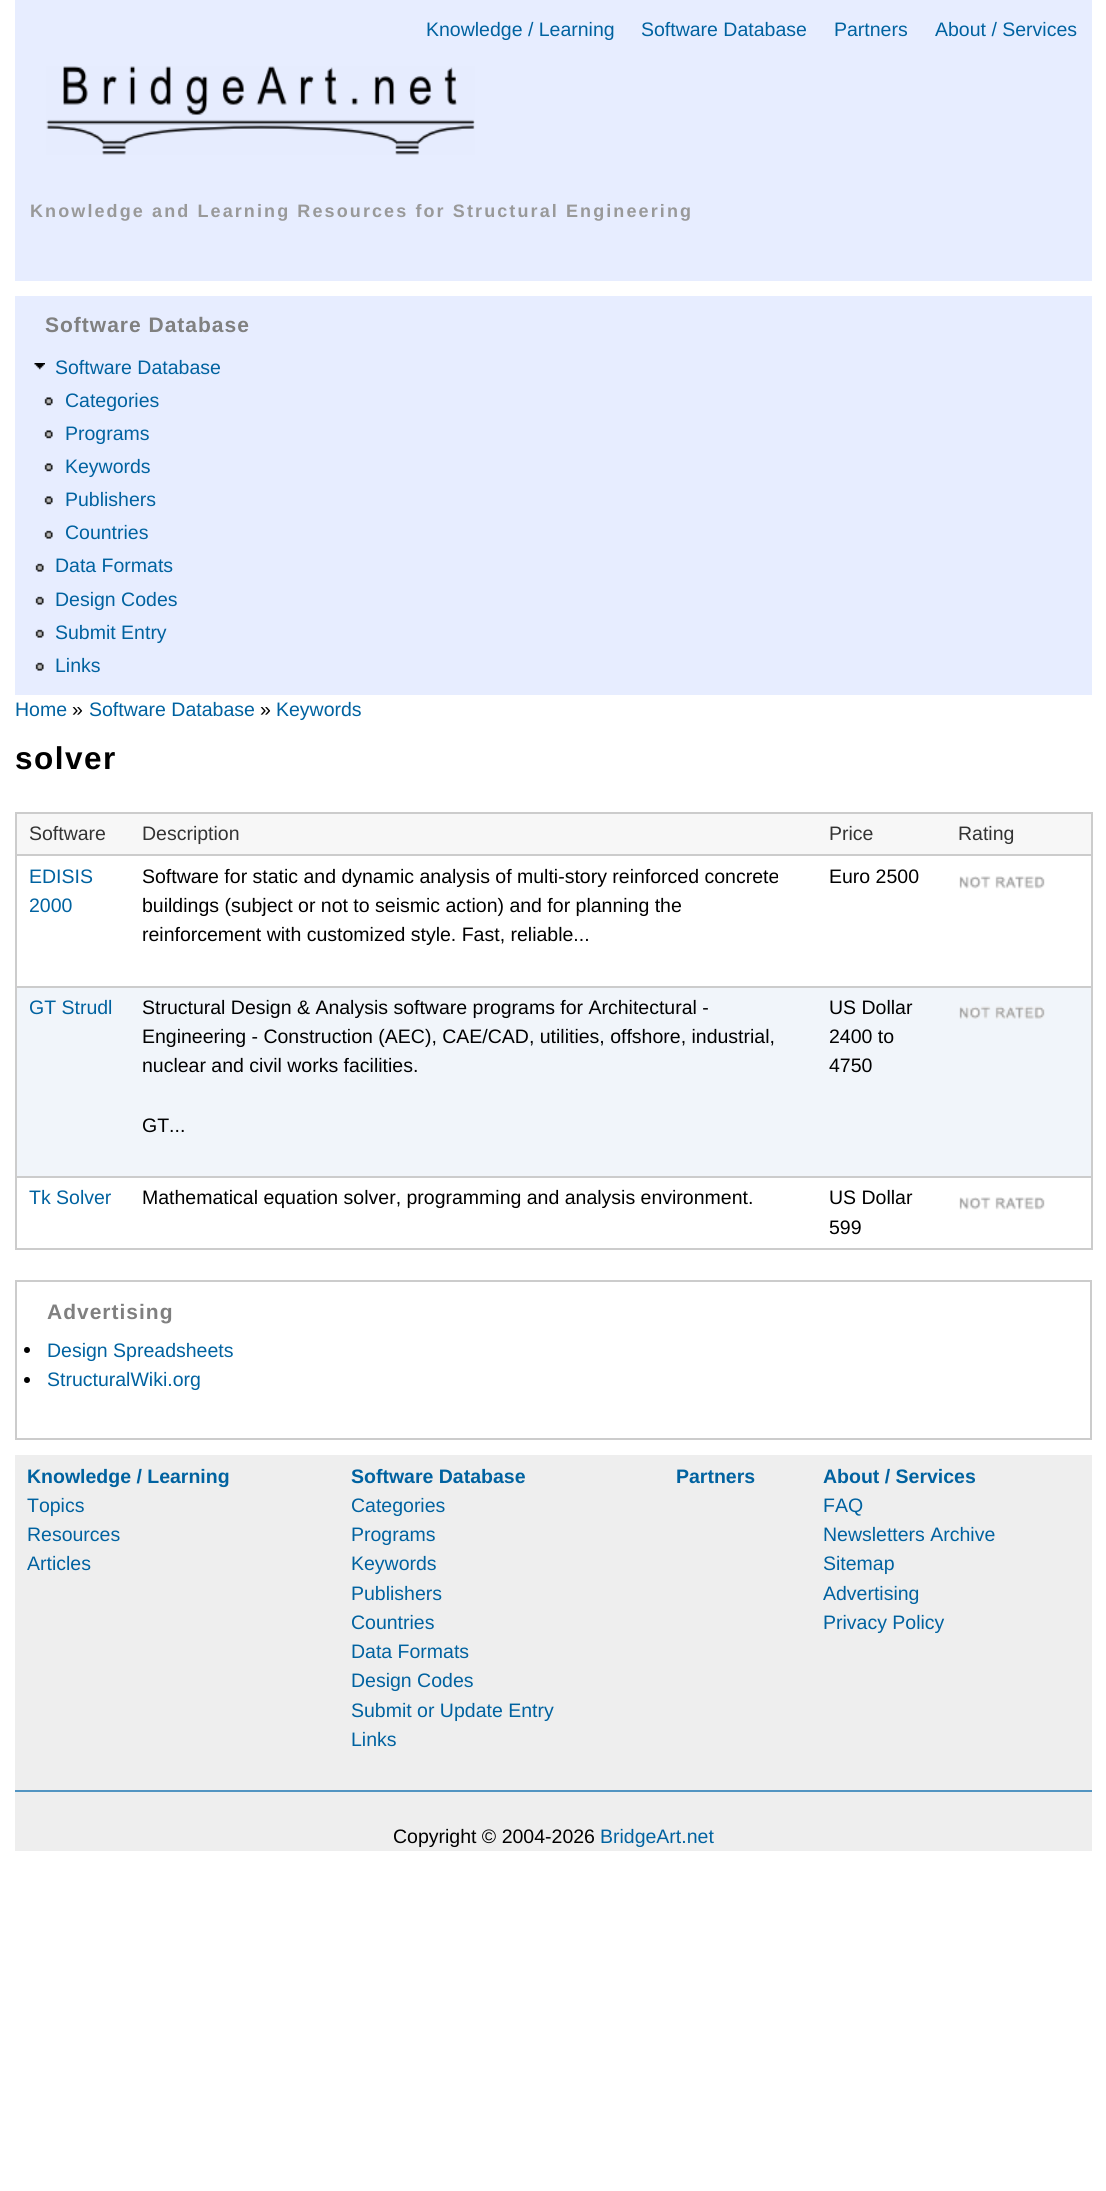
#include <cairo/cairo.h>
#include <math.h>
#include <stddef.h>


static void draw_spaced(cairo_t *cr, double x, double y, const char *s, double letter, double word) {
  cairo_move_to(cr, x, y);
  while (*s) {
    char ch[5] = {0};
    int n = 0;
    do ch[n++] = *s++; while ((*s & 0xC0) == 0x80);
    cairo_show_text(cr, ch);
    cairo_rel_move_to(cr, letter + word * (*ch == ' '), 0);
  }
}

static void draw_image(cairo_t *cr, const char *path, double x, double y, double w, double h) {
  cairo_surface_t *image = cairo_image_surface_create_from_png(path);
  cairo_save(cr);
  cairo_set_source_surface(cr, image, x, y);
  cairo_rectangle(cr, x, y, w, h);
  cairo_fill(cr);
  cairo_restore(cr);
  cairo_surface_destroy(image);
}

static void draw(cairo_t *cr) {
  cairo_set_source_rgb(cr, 1, 1, 1);
  cairo_paint(cr);
  cairo_set_source_rgb(cr, 231 / 255.0, 237 / 255.0, 1);
  cairo_rectangle(cr, 15, 0, 1077, 281);
  cairo_fill(cr);
  draw_image(cr, "images/1.png", 46, 66, 429, 89);
  cairo_rectangle(cr, 15, 296, 1077, 399);
  cairo_fill(cr);
  draw_image(cr, "images/2.png", 34, 363, 11, 7);
  draw_image(cr, "images/3.png", 44, 397, 9, 9);
  draw_image(cr, "images/3.png", 44, 430, 9, 9);
  draw_image(cr, "images/3.png", 44, 463, 9, 9);
  draw_image(cr, "images/3.png", 44, 496, 9, 9);
  draw_image(cr, "images/4.png", 44, 530, 9, 9);
  draw_image(cr, "images/4.png", 35, 563, 9, 9);
  draw_image(cr, "images/4.png", 35, 596, 9, 9);
  draw_image(cr, "images/4.png", 35, 629, 9, 9);
  draw_image(cr, "images/4.png", 35, 662, 9, 9);
  cairo_set_source_rgb(cr, 204 / 255.0, 204 / 255.0, 204 / 255.0);
  cairo_rectangle(cr, 15, 812, 1077, 2);
  cairo_fill(cr);
  cairo_rectangle(cr, 1091, 812, 2, 438);
  cairo_fill(cr);
  cairo_rectangle(cr, 15, 1248, 1077, 2);
  cairo_fill(cr);
  cairo_rectangle(cr, 15, 812, 2, 438);
  cairo_fill(cr);
  cairo_set_source_rgb(cr, 247 / 255.0, 247 / 255.0, 247 / 255.0);
  cairo_rectangle(cr, 17, 814, 1074, 40);
  cairo_fill(cr);
  cairo_set_source_rgb(cr, 204 / 255.0, 204 / 255.0, 204 / 255.0);
  cairo_rectangle(cr, 15, 854, 1077, 2);
  cairo_fill(cr);
  cairo_rectangle(cr, 15, 986, 1077, 2);
  cairo_fill(cr);
  draw_image(cr, "images/5.png", 959, 876, 86, 13);
  cairo_rectangle(cr, 15, 1176, 1077, 2);
  cairo_fill(cr);
  cairo_set_source_rgb(cr, 241 / 255.0, 245 / 255.0, 250 / 255.0);
  cairo_rectangle(cr, 17, 988, 1074, 188);
  cairo_fill(cr);
  draw_image(cr, "images/6.png", 959, 1006, 86, 13);
  draw_image(cr, "images/5.png", 959, 1197, 86, 13);
  cairo_rectangle(cr, 16, 1281, 1075, 158);
  cairo_set_source_rgb(cr, 204 / 255.0, 204 / 255.0, 204 / 255.0);
  cairo_stroke(cr);
  cairo_set_source_rgb(cr, 0, 0, 0);
  cairo_arc(cr, 27, 1350, 3, 0, 2 * M_PI);
  cairo_fill(cr);
  cairo_arc(cr, 27, 1380, 3, 0, 2 * M_PI);
  cairo_fill(cr);
  cairo_set_source_rgb(cr, 238 / 255.0, 238 / 255.0, 238 / 255.0);
  cairo_rectangle(cr, 15, 1455, 1077, 396);
  cairo_fill(cr);
  cairo_set_source_rgb(cr, 82 / 255.0, 148 / 255.0, 193 / 255.0);
  cairo_rectangle(cr, 15, 1790, 1077, 2);
  cairo_fill(cr);
  cairo_select_font_face(cr, "Liberation Sans", CAIRO_FONT_SLANT_NORMAL, CAIRO_FONT_WEIGHT_NORMAL);
  cairo_set_font_size(cr, 19.5);
  cairo_set_source_rgb(cr, 0, 98 / 255.0, 160 / 255.0);
  cairo_move_to(cr, 426, 36);
  cairo_show_text(cr, "Knowledge / Learning");
  cairo_move_to(cr, 641, 36);
  cairo_show_text(cr, "Software Database");
  cairo_move_to(cr, 834, 36);
  cairo_show_text(cr, "Partners");
  cairo_move_to(cr, 935, 36);
  cairo_show_text(cr, "About / Services");
  cairo_select_font_face(cr, "Liberation Sans", CAIRO_FONT_SLANT_NORMAL, CAIRO_FONT_WEIGHT_BOLD);
  cairo_set_font_size(cr, 18);
  cairo_set_source_rgb(cr, 153 / 255.0, 153 / 255.0, 153 / 255.0);
  draw_spaced(cr, 30, 217, "Knowledge and Learning Resources for Structural Engineering", 2.1, 0);
  cairo_set_font_size(cr, 21);
  cairo_set_source_rgb(cr, 128 / 255.0, 128 / 255.0, 128 / 255.0);
  draw_spaced(cr, 45, 332, "Software Database", 1, 0);
  cairo_select_font_face(cr, "Liberation Sans", CAIRO_FONT_SLANT_NORMAL, CAIRO_FONT_WEIGHT_NORMAL);
  cairo_set_font_size(cr, 19.5);
  cairo_set_source_rgb(cr, 0, 98 / 255.0, 160 / 255.0);
  cairo_move_to(cr, 55, 374);
  cairo_show_text(cr, "Software Database");
  cairo_move_to(cr, 65, 407);
  cairo_show_text(cr, "Categories");
  cairo_move_to(cr, 65, 440);
  cairo_show_text(cr, "Programs");
  cairo_move_to(cr, 65, 473);
  cairo_show_text(cr, "Keywords");
  cairo_move_to(cr, 65, 506);
  cairo_show_text(cr, "Publishers");
  cairo_move_to(cr, 65, 539);
  cairo_show_text(cr, "Countries");
  cairo_move_to(cr, 55, 572);
  cairo_show_text(cr, "Data Formats");
  cairo_move_to(cr, 55, 606);
  cairo_show_text(cr, "Design Codes");
  cairo_move_to(cr, 55, 639);
  cairo_show_text(cr, "Submit Entry");
  cairo_move_to(cr, 55, 672);
  cairo_show_text(cr, "Links");
  cairo_move_to(cr, 15, 716);
  cairo_show_text(cr, "Home");
  cairo_set_source_rgb(cr, 0, 0, 0);
  cairo_move_to(cr, 72, 716);
  cairo_show_text(cr, "»");
  cairo_set_source_rgb(cr, 0, 98 / 255.0, 160 / 255.0);
  cairo_move_to(cr, 89, 716);
  cairo_show_text(cr, "Software Database");
  cairo_set_source_rgb(cr, 0, 0, 0);
  cairo_move_to(cr, 260, 716);
  cairo_show_text(cr, "»");
  cairo_set_source_rgb(cr, 0, 98 / 255.0, 160 / 255.0);
  cairo_move_to(cr, 276, 716);
  cairo_show_text(cr, "Keywords");
  cairo_select_font_face(cr, "Liberation Sans", CAIRO_FONT_SLANT_NORMAL, CAIRO_FONT_WEIGHT_BOLD);
  cairo_set_font_size(cr, 31.5);
  cairo_set_source_rgb(cr, 0, 0, 0);
  draw_spaced(cr, 15, 769, "solver", 1.5, 0);
  cairo_select_font_face(cr, "Liberation Sans", CAIRO_FONT_SLANT_NORMAL, CAIRO_FONT_WEIGHT_NORMAL);
  cairo_set_font_size(cr, 19.5);
  cairo_set_source_rgb(cr, 51 / 255.0, 51 / 255.0, 51 / 255.0);
  cairo_move_to(cr, 29, 840);
  cairo_show_text(cr, "Software");
  cairo_move_to(cr, 142, 840);
  cairo_show_text(cr, "Description");
  cairo_move_to(cr, 829, 840);
  cairo_show_text(cr, "Price");
  cairo_move_to(cr, 958, 840);
  cairo_show_text(cr, "Rating");
  cairo_set_source_rgb(cr, 0, 98 / 255.0, 160 / 255.0);
  cairo_move_to(cr, 29, 883);
  cairo_show_text(cr, "EDISIS");
  cairo_move_to(cr, 29, 912);
  cairo_show_text(cr, "2000");
  cairo_set_source_rgb(cr, 0, 0, 0);
  cairo_move_to(cr, 142, 883);
  cairo_show_text(cr, "Software for static and dynamic analysis of multi-story reinforced concrete");
  cairo_move_to(cr, 142, 912);
  cairo_show_text(cr, "buildings (subject or not to seismic action) and for planning the");
  cairo_move_to(cr, 142, 941);
  cairo_show_text(cr, "reinforcement with customized style. Fast, reliable...");
  cairo_move_to(cr, 829, 883);
  cairo_show_text(cr, "Euro 2500");
  cairo_set_source_rgb(cr, 0, 98 / 255.0, 160 / 255.0);
  cairo_move_to(cr, 29, 1014);
  cairo_show_text(cr, "GT Strudl");
  cairo_set_source_rgb(cr, 0, 0, 0);
  cairo_move_to(cr, 142, 1014);
  cairo_show_text(cr, "Structural Design & Analysis software programs for Architectural -");
  cairo_move_to(cr, 142, 1043);
  cairo_show_text(cr, "Engineering - Construction (AEC), CAE/CAD, utilities, offshore, industrial,");
  cairo_move_to(cr, 142, 1072);
  cairo_show_text(cr, "nuclear and civil works facilities.");
  cairo_move_to(cr, 142, 1132);
  cairo_show_text(cr, "GT...");
  cairo_move_to(cr, 829, 1014);
  cairo_show_text(cr, "US Dollar");
  cairo_move_to(cr, 829, 1043);
  cairo_show_text(cr, "2400 to");
  cairo_move_to(cr, 829, 1072);
  cairo_show_text(cr, "4750");
  cairo_set_source_rgb(cr, 0, 98 / 255.0, 160 / 255.0);
  cairo_move_to(cr, 29, 1204);
  cairo_show_text(cr, "Tk Solver");
  cairo_set_source_rgb(cr, 0, 0, 0);
  cairo_move_to(cr, 142, 1204);
  cairo_show_text(cr, "Mathematical equation solver, programming and analysis environment.");
  cairo_move_to(cr, 829, 1204);
  cairo_show_text(cr, "US Dollar");
  cairo_move_to(cr, 829, 1234);
  cairo_show_text(cr, "599");
  cairo_select_font_face(cr, "Liberation Sans", CAIRO_FONT_SLANT_NORMAL, CAIRO_FONT_WEIGHT_BOLD);
  cairo_set_font_size(cr, 21);
  cairo_set_source_rgb(cr, 128 / 255.0, 128 / 255.0, 128 / 255.0);
  draw_spaced(cr, 47, 1319, "Advertising", 1, 0);
  cairo_select_font_face(cr, "Liberation Sans", CAIRO_FONT_SLANT_NORMAL, CAIRO_FONT_WEIGHT_NORMAL);
  cairo_set_font_size(cr, 19.5);
  cairo_set_source_rgb(cr, 0, 98 / 255.0, 160 / 255.0);
  cairo_move_to(cr, 47, 1357);
  cairo_show_text(cr, "Design Spreadsheets");
  cairo_move_to(cr, 47, 1386);
  cairo_show_text(cr, "StructuralWiki.org");
  cairo_select_font_face(cr, "Liberation Sans", CAIRO_FONT_SLANT_NORMAL, CAIRO_FONT_WEIGHT_BOLD);
  cairo_move_to(cr, 27, 1483);
  cairo_show_text(cr, "Knowledge / Learning");
  cairo_select_font_face(cr, "Liberation Sans", CAIRO_FONT_SLANT_NORMAL, CAIRO_FONT_WEIGHT_NORMAL);
  cairo_move_to(cr, 27, 1512);
  cairo_show_text(cr, "Topics");
  cairo_move_to(cr, 27, 1541);
  cairo_show_text(cr, "Resources");
  cairo_move_to(cr, 27, 1570);
  cairo_show_text(cr, "Articles");
  cairo_select_font_face(cr, "Liberation Sans", CAIRO_FONT_SLANT_NORMAL, CAIRO_FONT_WEIGHT_BOLD);
  cairo_move_to(cr, 351, 1483);
  cairo_show_text(cr, "Software Database");
  cairo_select_font_face(cr, "Liberation Sans", CAIRO_FONT_SLANT_NORMAL, CAIRO_FONT_WEIGHT_NORMAL);
  cairo_move_to(cr, 351, 1512);
  cairo_show_text(cr, "Categories");
  cairo_move_to(cr, 351, 1541);
  cairo_show_text(cr, "Programs");
  cairo_move_to(cr, 351, 1570);
  cairo_show_text(cr, "Keywords");
  cairo_move_to(cr, 351, 1600);
  cairo_show_text(cr, "Publishers");
  cairo_move_to(cr, 351, 1629);
  cairo_show_text(cr, "Countries");
  cairo_move_to(cr, 351, 1658);
  cairo_show_text(cr, "Data Formats");
  cairo_move_to(cr, 351, 1687);
  cairo_show_text(cr, "Design Codes");
  cairo_move_to(cr, 351, 1717);
  cairo_show_text(cr, "Submit or Update Entry");
  cairo_move_to(cr, 351, 1746);
  cairo_show_text(cr, "Links");
  cairo_select_font_face(cr, "Liberation Sans", CAIRO_FONT_SLANT_NORMAL, CAIRO_FONT_WEIGHT_BOLD);
  cairo_move_to(cr, 676, 1483);
  cairo_show_text(cr, "Partners");
  cairo_move_to(cr, 823, 1483);
  cairo_show_text(cr, "About / Services");
  cairo_select_font_face(cr, "Liberation Sans", CAIRO_FONT_SLANT_NORMAL, CAIRO_FONT_WEIGHT_NORMAL);
  cairo_move_to(cr, 823, 1512);
  cairo_show_text(cr, "FAQ");
  cairo_move_to(cr, 823, 1541);
  cairo_show_text(cr, "Newsletters Archive");
  cairo_move_to(cr, 823, 1570);
  cairo_show_text(cr, "Sitemap");
  cairo_move_to(cr, 823, 1600);
  cairo_show_text(cr, "Advertising");
  cairo_move_to(cr, 823, 1629);
  cairo_show_text(cr, "Privacy Policy");
  cairo_set_source_rgb(cr, 0, 0, 0);
  cairo_move_to(cr, 393, 1843);
  cairo_show_text(cr, "Copyright © 2004-2026");
  cairo_set_source_rgb(cr, 0, 98 / 255.0, 160 / 255.0);
  cairo_move_to(cr, 600, 1843);
  cairo_show_text(cr, "BridgeArt.net");
}

int main(void) {
  cairo_surface_t *surface = cairo_image_surface_create(CAIRO_FORMAT_RGB24, 1106, 2191);
  cairo_t *cr = cairo_create(surface);
  cairo_font_options_t *options = cairo_font_options_create();
  cairo_font_options_set_hint_metrics(options, CAIRO_HINT_METRICS_OFF);
  cairo_font_options_set_hint_style(options, CAIRO_HINT_STYLE_NONE);
  cairo_set_font_options(cr, options);
  cairo_set_miter_limit(cr, 4);
  draw(cr);
  cairo_surface_write_to_png(surface, "out.png");
  cairo_font_options_destroy(options);
  cairo_destroy(cr);
  cairo_surface_destroy(surface);
  return 0;
}
